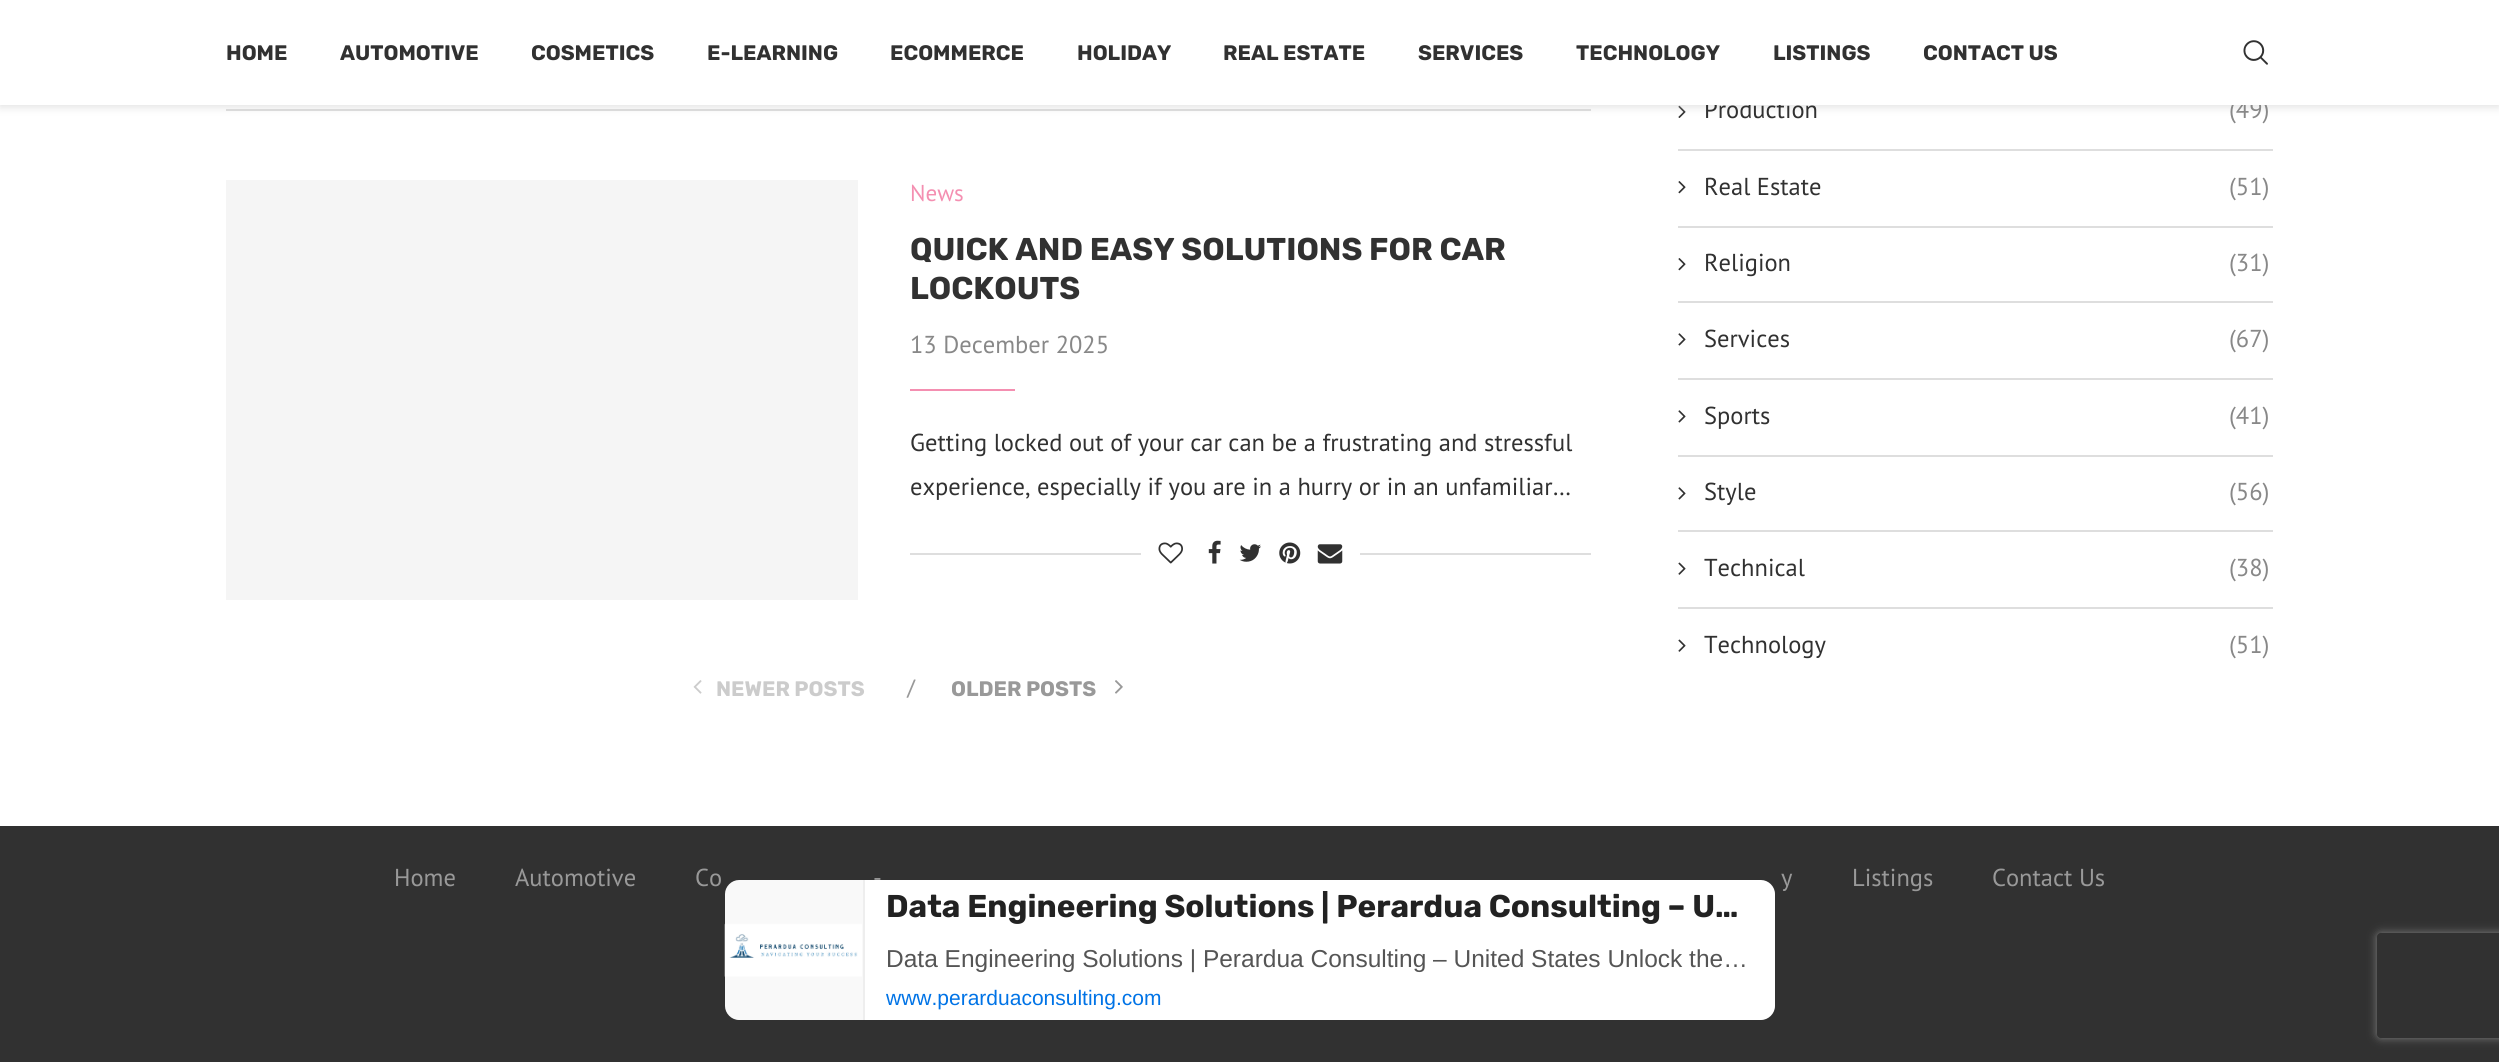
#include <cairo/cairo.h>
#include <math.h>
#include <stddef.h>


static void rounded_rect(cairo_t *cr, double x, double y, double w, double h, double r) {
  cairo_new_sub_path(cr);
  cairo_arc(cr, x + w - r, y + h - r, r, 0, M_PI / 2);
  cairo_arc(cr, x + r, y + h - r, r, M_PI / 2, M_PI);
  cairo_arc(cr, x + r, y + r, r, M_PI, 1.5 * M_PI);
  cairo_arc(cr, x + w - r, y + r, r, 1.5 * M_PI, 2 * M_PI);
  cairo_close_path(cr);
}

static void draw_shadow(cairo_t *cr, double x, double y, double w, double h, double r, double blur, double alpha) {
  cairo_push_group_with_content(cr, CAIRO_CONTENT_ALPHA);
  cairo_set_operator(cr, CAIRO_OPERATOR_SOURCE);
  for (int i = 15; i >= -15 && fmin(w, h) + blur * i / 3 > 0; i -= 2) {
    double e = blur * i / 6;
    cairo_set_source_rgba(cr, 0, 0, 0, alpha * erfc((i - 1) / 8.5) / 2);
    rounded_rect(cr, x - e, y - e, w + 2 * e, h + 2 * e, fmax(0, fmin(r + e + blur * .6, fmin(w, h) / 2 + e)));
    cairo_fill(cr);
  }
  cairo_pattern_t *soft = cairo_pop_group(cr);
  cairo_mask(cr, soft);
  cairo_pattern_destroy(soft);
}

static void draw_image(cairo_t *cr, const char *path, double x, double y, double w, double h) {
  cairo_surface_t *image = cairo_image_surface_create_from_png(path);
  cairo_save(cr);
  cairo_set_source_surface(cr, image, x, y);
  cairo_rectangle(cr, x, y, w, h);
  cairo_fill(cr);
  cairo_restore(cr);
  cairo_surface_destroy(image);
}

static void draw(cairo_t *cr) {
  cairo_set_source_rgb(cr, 1, 1, 1);
  cairo_paint(cr);
  cairo_set_source_rgb(cr, 222 / 255.0, 222 / 255.0, 222 / 255.0);
  cairo_rectangle(cr, 226, 109, 1365, 2);
  cairo_fill(cr);
  draw_image(cr, "images/9.png", 1678, 105, 8, 13);
  cairo_set_source_rgb(cr, 190 / 255.0, 190 / 255.0, 190 / 255.0);
  draw_shadow(cr, 0, 2, 2499, 105, 0, 4.5, 0.46);
  cairo_set_source_rgb(cr, 245 / 255.0, 245 / 255.0, 245 / 255.0);
  cairo_rectangle(cr, 226, 180, 632, 420);
  cairo_fill(cr);
  cairo_set_source_rgb(cr, 244 / 255.0, 143 / 255.0, 177 / 255.0);
  cairo_rectangle(cr, 910, 389, 105, 2);
  cairo_fill(cr);
  cairo_set_source_rgb(cr, 222 / 255.0, 222 / 255.0, 222 / 255.0);
  cairo_rectangle(cr, 910, 553, 681, 2);
  cairo_fill(cr);
  cairo_set_source_rgb(cr, 1, 1, 1);
  cairo_rectangle(cr, 1141, 553, 219, 2);
  cairo_fill(cr);
  draw_image(cr, "images/2.png", 1158, 542, 25, 22);
  draw_image(cr, "images/3.png", 1208, 540, 13, 24);
  draw_image(cr, "images/4.png", 1239, 544, 22, 18);
  draw_image(cr, "images/5.png", 1279, 542, 22, 22);
  draw_image(cr, "images/6.png", 1317, 544, 26, 20);
  draw_image(cr, "images/7.png", 693, 680, 9, 14);
  draw_image(cr, "images/8.png", 1115, 680, 8, 14);
  cairo_set_source_rgb(cr, 222 / 255.0, 222 / 255.0, 222 / 255.0);
  cairo_rectangle(cr, 1678, 149, 595, 2);
  cairo_fill(cr);
  cairo_rectangle(cr, 1678, 226, 595, 2);
  cairo_fill(cr);
  draw_image(cr, "images/10.png", 1678, 181, 8, 13);
  cairo_rectangle(cr, 1678, 301, 595, 2);
  cairo_fill(cr);
  draw_image(cr, "images/10.png", 1678, 258, 8, 13);
  cairo_rectangle(cr, 1678, 378, 595, 2);
  cairo_fill(cr);
  draw_image(cr, "images/11.png", 1678, 333, 8, 13);
  cairo_rectangle(cr, 1678, 455, 595, 2);
  cairo_fill(cr);
  draw_image(cr, "images/11.png", 1678, 410, 8, 13);
  cairo_rectangle(cr, 1678, 530, 595, 2);
  cairo_fill(cr);
  draw_image(cr, "images/11.png", 1678, 487, 8, 13);
  cairo_rectangle(cr, 1678, 607, 595, 2);
  cairo_fill(cr);
  draw_image(cr, "images/12.png", 1678, 562, 8, 13);
  draw_image(cr, "images/12.png", 1678, 639, 8, 13);
  cairo_set_source_rgb(cr, 49 / 255.0, 49 / 255.0, 49 / 255.0);
  cairo_rectangle(cr, 0, 826, 2499, 236);
  cairo_fill(cr);
  cairo_set_source_rgb(cr, 238 / 255.0, 238 / 255.0, 238 / 255.0);
  cairo_rectangle(cr, 863, 880, 2, 140);
  cairo_fill(cr);
  cairo_set_source_rgb(cr, 249 / 255.0, 249 / 255.0, 249 / 255.0);
  cairo_new_path(cr);
  cairo_move_to(cr, 739, 880);
  cairo_line_to(cr, 863, 880);
  cairo_line_to(cr, 863, 1020);
  cairo_line_to(cr, 739, 1020);
  cairo_curve_to(cr, 731.5, 1020, 725, 1013.5, 725, 1006);
  cairo_line_to(cr, 725, 894);
  cairo_curve_to(cr, 725, 886.5, 731.5, 880, 739, 880);
  cairo_close_path(cr);
  cairo_fill(cr);
  draw_image(cr, "images/13.png", 724, 923, 138, 54);
  cairo_set_source_rgb(cr, 1, 1, 1);
  cairo_new_path(cr);
  cairo_move_to(cr, 865, 880);
  cairo_line_to(cr, 1761, 880);
  cairo_curve_to(cr, 1768.5, 880, 1775, 886.5, 1775, 894);
  cairo_line_to(cr, 1775, 1006);
  cairo_curve_to(cr, 1775, 1013.5, 1768.5, 1020, 1761, 1020);
  cairo_line_to(cr, 865, 1020);
  cairo_close_path(cr);
  cairo_fill(cr);
  cairo_save(cr);
  cairo_set_fill_rule(cr, CAIRO_FILL_RULE_EVEN_ODD);
  cairo_new_path(cr);
  cairo_move_to(cr, 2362, 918);
  cairo_line_to(cr, 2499, 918);
  cairo_line_to(cr, 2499, 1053);
  cairo_line_to(cr, 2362, 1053);
  cairo_close_path(cr);
  cairo_move_to(cr, 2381, 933);
  cairo_line_to(cr, 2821, 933);
  cairo_curve_to(cr, 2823, 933, 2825, 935, 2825, 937);
  cairo_line_to(cr, 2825, 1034);
  cairo_curve_to(cr, 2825, 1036, 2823, 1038, 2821, 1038);
  cairo_line_to(cr, 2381, 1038);
  cairo_curve_to(cr, 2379, 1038, 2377, 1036, 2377, 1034);
  cairo_line_to(cr, 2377, 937);
  cairo_curve_to(cr, 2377, 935, 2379, 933, 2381, 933);
  cairo_close_path(cr);
  cairo_clip(cr);
  cairo_set_source_rgb(cr, 128 / 255.0, 128 / 255.0, 128 / 255.0);
  draw_shadow(cr, 2377, 933, 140, 105, 4, 4.5, 1);
  cairo_restore(cr);
  cairo_select_font_face(cr, "PT Sans", CAIRO_FONT_SLANT_NORMAL, CAIRO_FONT_WEIGHT_NORMAL);
  cairo_set_font_size(cr, 23);
  cairo_set_source_rgb(cr, 244 / 255.0, 143 / 255.0, 177 / 255.0);
  cairo_move_to(cr, 910, 201);
  cairo_show_text(cr, "News");
  cairo_select_font_face(cr, "Rubik", CAIRO_FONT_SLANT_NORMAL, CAIRO_FONT_WEIGHT_BOLD);
  cairo_set_font_size(cr, 31.5);
  cairo_set_source_rgb(cr, 49 / 255.0, 49 / 255.0, 49 / 255.0);
  cairo_move_to(cr, 910, 260);
  cairo_show_text(cr, "QUICK AND EASY SOLUTIONS FOR CAR");
  cairo_move_to(cr, 910, 299);
  cairo_show_text(cr, "LOCKOUTS");
  cairo_select_font_face(cr, "PT Sans", CAIRO_FONT_SLANT_NORMAL, CAIRO_FONT_WEIGHT_NORMAL);
  cairo_set_font_size(cr, 24.5);
  cairo_set_source_rgb(cr, 136 / 255.0, 136 / 255.0, 136 / 255.0);
  cairo_move_to(cr, 910, 353);
  cairo_show_text(cr, "13 December 2025");
  cairo_set_source_rgb(cr, 49 / 255.0, 49 / 255.0, 49 / 255.0);
  cairo_move_to(cr, 910, 451);
  cairo_show_text(cr, "Getting locked out of your car can be a frustrating and stressful");
  cairo_move_to(cr, 910, 495);
  cairo_show_text(cr, "experience, especially if you are in a hurry or in an unfamiliar…");
  cairo_select_font_face(cr, "Rubik", CAIRO_FONT_SLANT_NORMAL, CAIRO_FONT_WEIGHT_BOLD);
  cairo_set_font_size(cr, 21);
  cairo_set_source_rgb(cr, 204 / 255.0, 204 / 255.0, 204 / 255.0);
  cairo_move_to(cr, 716, 696);
  cairo_show_text(cr, "NEWER POSTS");
  cairo_select_font_face(cr, "Rubik", CAIRO_FONT_SLANT_NORMAL, CAIRO_FONT_WEIGHT_NORMAL);
  cairo_set_source_rgb(cr, 153 / 255.0, 153 / 255.0, 153 / 255.0);
  cairo_move_to(cr, 906, 696);
  cairo_show_text(cr, "/");
  cairo_select_font_face(cr, "Rubik", CAIRO_FONT_SLANT_NORMAL, CAIRO_FONT_WEIGHT_BOLD);
  cairo_move_to(cr, 951, 696);
  cairo_show_text(cr, "OLDER POSTS");
  cairo_select_font_face(cr, "PT Sans", CAIRO_FONT_SLANT_NORMAL, CAIRO_FONT_WEIGHT_NORMAL);
  cairo_set_font_size(cr, 24.5);
  cairo_set_source_rgb(cr, 49 / 255.0, 49 / 255.0, 49 / 255.0);
  cairo_move_to(cr, 1704, 118);
  cairo_show_text(cr, "Production");
  cairo_set_source_rgb(cr, 136 / 255.0, 136 / 255.0, 136 / 255.0);
  cairo_move_to(cr, 2229, 118);
  cairo_show_text(cr, "(49)");
  cairo_set_source_rgb(cr, 1, 1, 1);
  cairo_rectangle(cr, 0, 0, 2499, 105);
  cairo_fill(cr);
  cairo_select_font_face(cr, "Rubik", CAIRO_FONT_SLANT_NORMAL, CAIRO_FONT_WEIGHT_BOLD);
  cairo_set_font_size(cr, 21);
  cairo_set_source_rgb(cr, 49 / 255.0, 49 / 255.0, 49 / 255.0);
  cairo_move_to(cr, 1923, 60);
  cairo_show_text(cr, "CONTACT US");
  cairo_move_to(cr, 1773, 60);
  cairo_show_text(cr, "LISTINGS");
  cairo_move_to(cr, 1576, 60);
  cairo_show_text(cr, "TECHNOLOGY");
  cairo_move_to(cr, 1418, 60);
  cairo_show_text(cr, "SERVICES");
  cairo_move_to(cr, 1223, 60);
  cairo_show_text(cr, "REAL ESTATE");
  cairo_move_to(cr, 1077, 60);
  cairo_show_text(cr, "HOLIDAY");
  cairo_move_to(cr, 890, 60);
  cairo_show_text(cr, "ECOMMERCE");
  cairo_move_to(cr, 707, 60);
  cairo_show_text(cr, "E-LEARNING");
  cairo_move_to(cr, 531, 60);
  cairo_show_text(cr, "COSMETICS");
  cairo_move_to(cr, 340, 60);
  cairo_show_text(cr, "AUTOMOTIVE");
  cairo_move_to(cr, 226, 60);
  cairo_show_text(cr, "HOME");
  draw_image(cr, "images/1.png", 2243, 40, 25, 25);
  cairo_select_font_face(cr, "PT Sans", CAIRO_FONT_SLANT_NORMAL, CAIRO_FONT_WEIGHT_NORMAL);
  cairo_set_font_size(cr, 24.5);
  cairo_move_to(cr, 1704, 195);
  cairo_show_text(cr, "Real Estate");
  cairo_set_source_rgb(cr, 136 / 255.0, 136 / 255.0, 136 / 255.0);
  cairo_move_to(cr, 2229, 195);
  cairo_show_text(cr, "(51)");
  cairo_set_source_rgb(cr, 49 / 255.0, 49 / 255.0, 49 / 255.0);
  cairo_move_to(cr, 1704, 271);
  cairo_show_text(cr, "Religion");
  cairo_set_source_rgb(cr, 136 / 255.0, 136 / 255.0, 136 / 255.0);
  cairo_move_to(cr, 2229, 271);
  cairo_show_text(cr, "(31)");
  cairo_set_source_rgb(cr, 49 / 255.0, 49 / 255.0, 49 / 255.0);
  cairo_move_to(cr, 1704, 347);
  cairo_show_text(cr, "Services");
  cairo_set_source_rgb(cr, 136 / 255.0, 136 / 255.0, 136 / 255.0);
  cairo_move_to(cr, 2229, 347);
  cairo_show_text(cr, "(67)");
  cairo_set_source_rgb(cr, 49 / 255.0, 49 / 255.0, 49 / 255.0);
  cairo_move_to(cr, 1704, 424);
  cairo_show_text(cr, "Sports");
  cairo_set_source_rgb(cr, 136 / 255.0, 136 / 255.0, 136 / 255.0);
  cairo_move_to(cr, 2229, 424);
  cairo_show_text(cr, "(41)");
  cairo_set_source_rgb(cr, 49 / 255.0, 49 / 255.0, 49 / 255.0);
  cairo_move_to(cr, 1704, 500);
  cairo_show_text(cr, "Style");
  cairo_set_source_rgb(cr, 136 / 255.0, 136 / 255.0, 136 / 255.0);
  cairo_move_to(cr, 2229, 500);
  cairo_show_text(cr, "(56)");
  cairo_set_source_rgb(cr, 49 / 255.0, 49 / 255.0, 49 / 255.0);
  cairo_move_to(cr, 1704, 576);
  cairo_show_text(cr, "Technical");
  cairo_set_source_rgb(cr, 136 / 255.0, 136 / 255.0, 136 / 255.0);
  cairo_move_to(cr, 2229, 576);
  cairo_show_text(cr, "(38)");
  cairo_set_source_rgb(cr, 49 / 255.0, 49 / 255.0, 49 / 255.0);
  cairo_move_to(cr, 1704, 653);
  cairo_show_text(cr, "Technology");
  cairo_set_source_rgb(cr, 136 / 255.0, 136 / 255.0, 136 / 255.0);
  cairo_move_to(cr, 2229, 653);
  cairo_show_text(cr, "(51)");
  cairo_set_source_rgb(cr, 153 / 255.0, 153 / 255.0, 153 / 255.0);
  cairo_move_to(cr, 394, 886);
  cairo_show_text(cr, "Home");
  cairo_move_to(cr, 515, 886);
  cairo_show_text(cr, "Automotive");
  cairo_move_to(cr, 695, 886);
  cairo_show_text(cr, "Co");
  cairo_move_to(cr, 873, 886);
  cairo_show_text(cr, "-");
  cairo_move_to(cr, 1781, 886);
  cairo_show_text(cr, "y");
  cairo_move_to(cr, 1852, 886);
  cairo_show_text(cr, "Listings");
  cairo_move_to(cr, 1992, 886);
  cairo_show_text(cr, "Contact Us");
  cairo_save(cr);
  cairo_rectangle(cr, 886, 891, 868, 35);
  cairo_clip(cr);
  cairo_select_font_face(cr, "Rubik", CAIRO_FONT_SLANT_NORMAL, CAIRO_FONT_WEIGHT_BOLD);
  cairo_set_font_size(cr, 31.5);
  cairo_set_source_rgb(cr, 34 / 255.0, 34 / 255.0, 34 / 255.0);
  cairo_move_to(cr, 886, 917);
  cairo_show_text(cr, "Data Engineering Solutions | Perardua Consulting – U…");
  cairo_restore(cr);
  cairo_select_font_face(cr, "Liberation Sans", CAIRO_FONT_SLANT_NORMAL, CAIRO_FONT_WEIGHT_NORMAL);
  cairo_set_source_rgb(cr, 85 / 255.0, 85 / 255.0, 85 / 255.0);
  cairo_move_to(cr, 886, 967);
  cairo_show_text(cr, "Data Engineering Solutions | Perardua Consulting – United States Unlock the…");
  cairo_set_font_size(cr, 21);
  cairo_set_source_rgb(cr, 0, 115 / 255.0, 230 / 255.0);
  cairo_move_to(cr, 886, 1005);
  cairo_show_text(cr, "www.perarduaconsulting.com");
}

int main(void) {
  cairo_surface_t *surface = cairo_image_surface_create(CAIRO_FORMAT_RGB24, 2499, 1062);
  cairo_t *cr = cairo_create(surface);
  cairo_font_options_t *options = cairo_font_options_create();
  cairo_font_options_set_hint_metrics(options, CAIRO_HINT_METRICS_OFF);
  cairo_font_options_set_hint_style(options, CAIRO_HINT_STYLE_NONE);
  cairo_set_font_options(cr, options);
  cairo_set_miter_limit(cr, 4);
  draw(cr);
  cairo_surface_write_to_png(surface, "out.png");
  cairo_font_options_destroy(options);
  cairo_destroy(cr);
  cairo_surface_destroy(surface);
  return 0;
}
